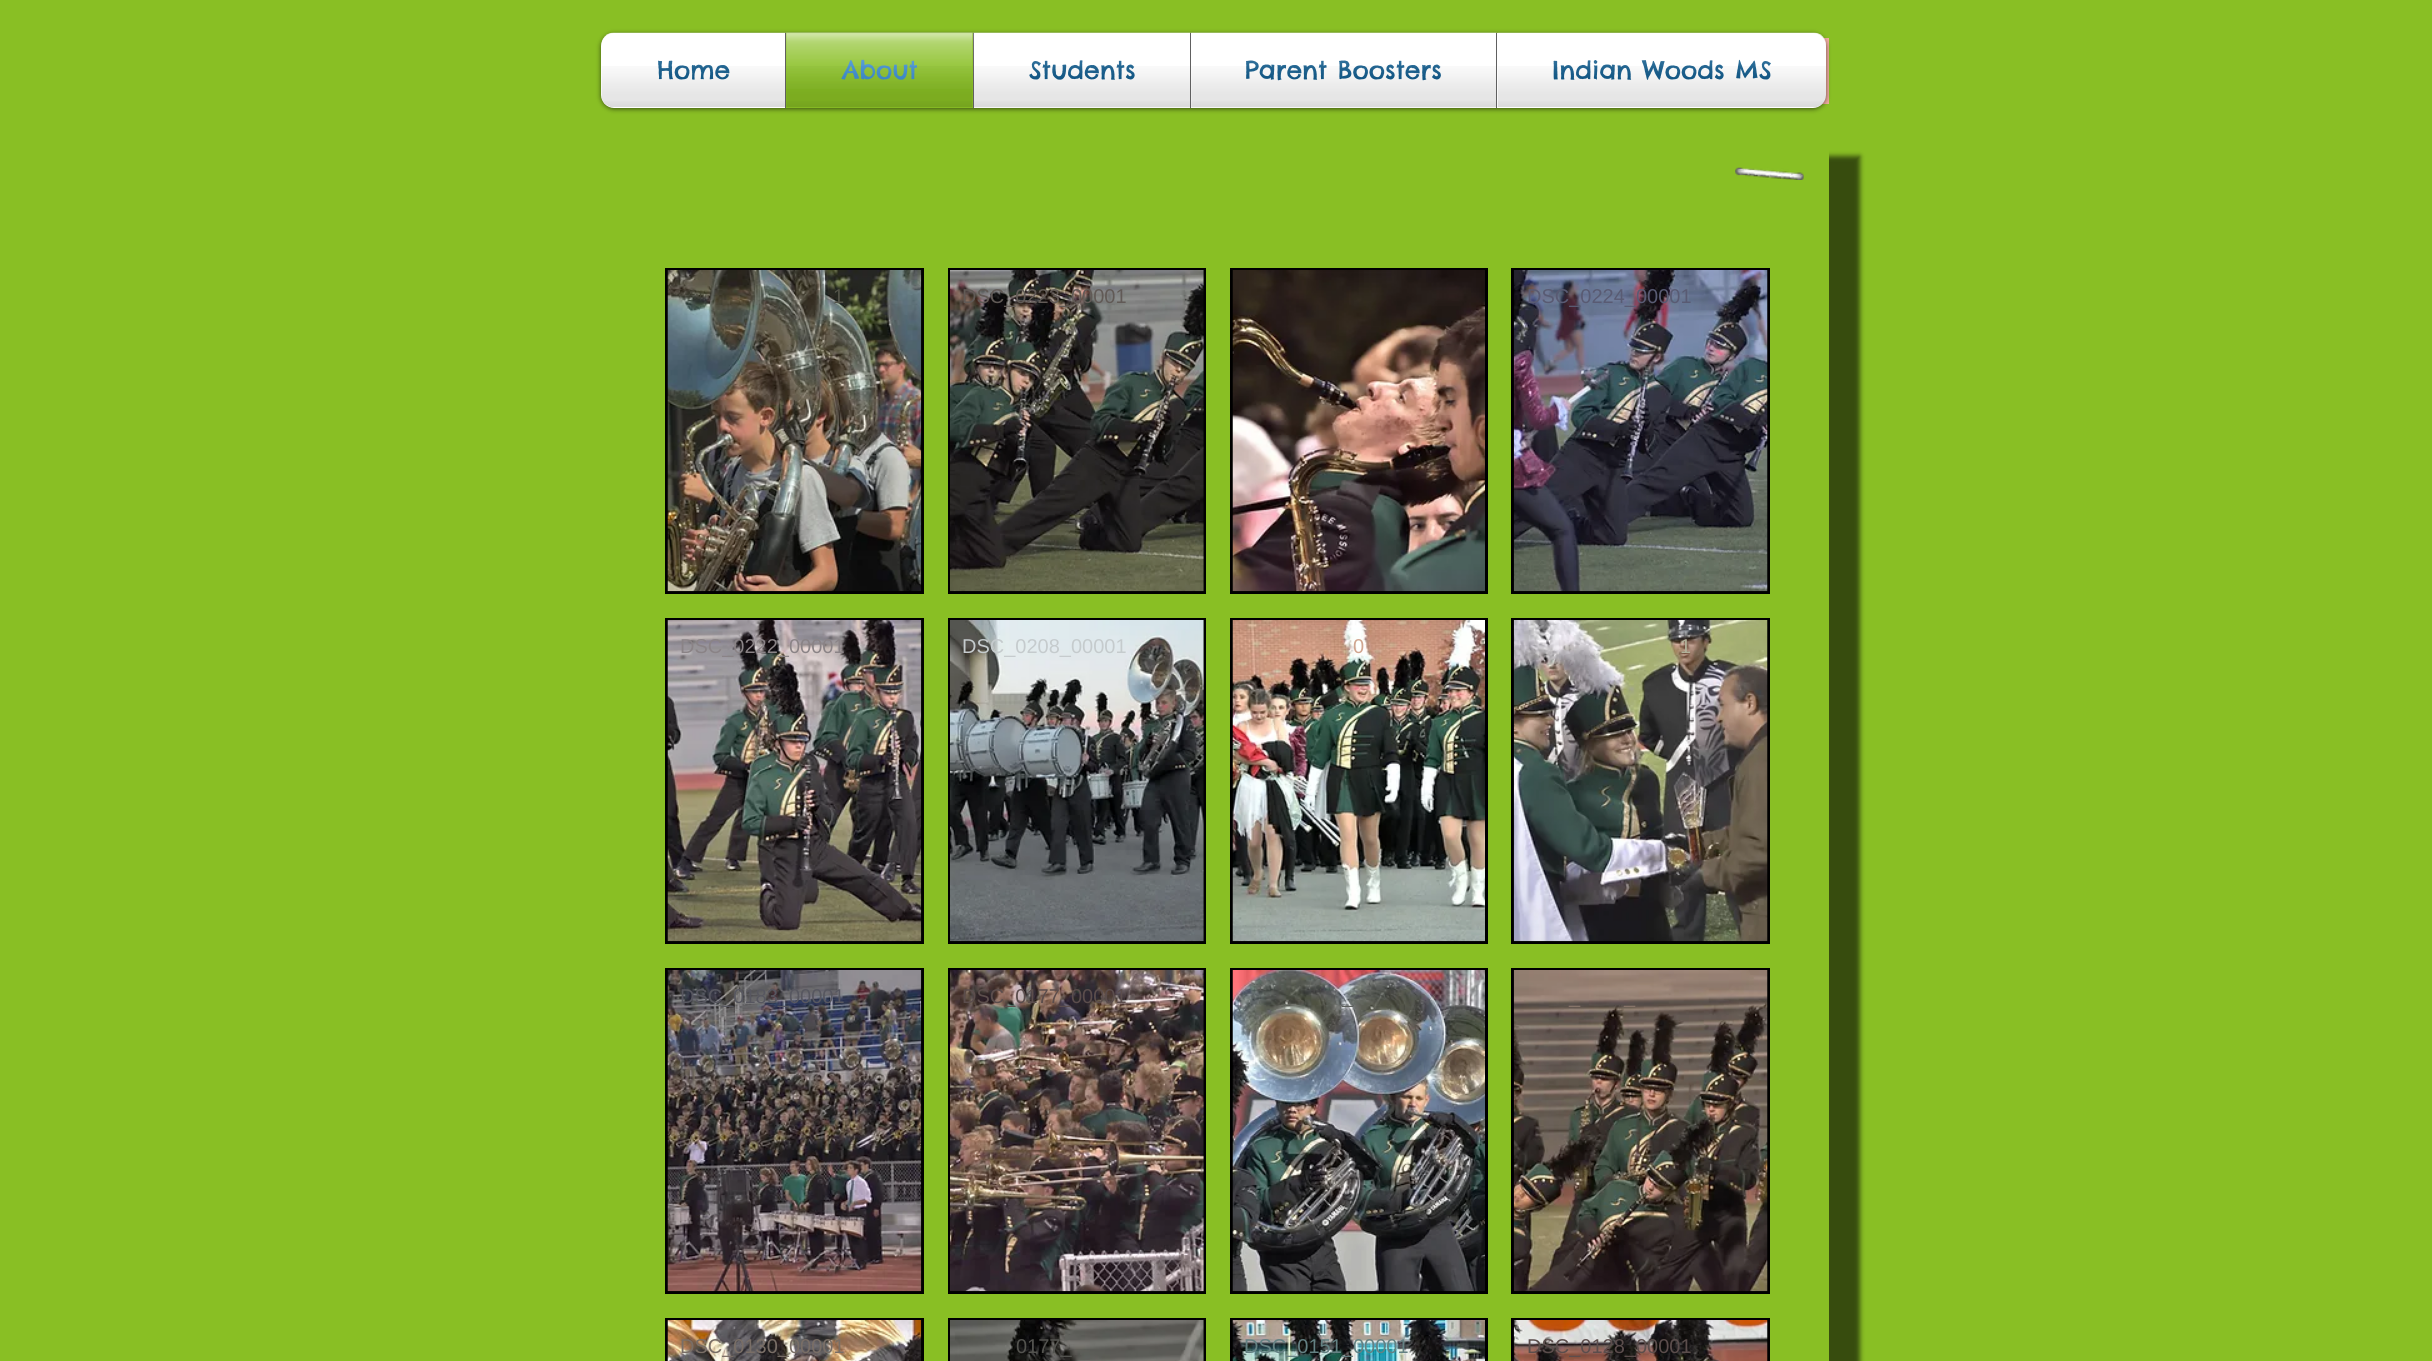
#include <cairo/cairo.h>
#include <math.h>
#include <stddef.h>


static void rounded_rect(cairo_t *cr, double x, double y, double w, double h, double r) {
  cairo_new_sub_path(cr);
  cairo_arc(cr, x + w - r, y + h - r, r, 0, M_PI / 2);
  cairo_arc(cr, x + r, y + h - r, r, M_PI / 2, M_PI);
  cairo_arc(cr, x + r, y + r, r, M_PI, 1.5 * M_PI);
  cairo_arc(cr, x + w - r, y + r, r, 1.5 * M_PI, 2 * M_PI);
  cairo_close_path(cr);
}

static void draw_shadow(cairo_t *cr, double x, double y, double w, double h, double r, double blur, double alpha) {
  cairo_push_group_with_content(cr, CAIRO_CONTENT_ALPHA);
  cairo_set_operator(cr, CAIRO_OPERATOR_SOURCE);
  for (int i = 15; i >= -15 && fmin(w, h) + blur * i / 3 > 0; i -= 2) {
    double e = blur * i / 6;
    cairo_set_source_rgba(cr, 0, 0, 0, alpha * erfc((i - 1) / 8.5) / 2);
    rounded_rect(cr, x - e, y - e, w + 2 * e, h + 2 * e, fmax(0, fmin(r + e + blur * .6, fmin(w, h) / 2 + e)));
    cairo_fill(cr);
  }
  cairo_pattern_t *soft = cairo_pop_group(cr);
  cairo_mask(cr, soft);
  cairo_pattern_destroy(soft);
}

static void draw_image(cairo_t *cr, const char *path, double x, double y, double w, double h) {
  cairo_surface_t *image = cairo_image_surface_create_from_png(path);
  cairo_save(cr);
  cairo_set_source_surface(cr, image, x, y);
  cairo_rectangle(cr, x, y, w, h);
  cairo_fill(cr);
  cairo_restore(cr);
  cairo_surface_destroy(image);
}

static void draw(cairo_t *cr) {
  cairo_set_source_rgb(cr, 137 / 255.0, 191 / 255.0, 36 / 255.0);
  cairo_paint(cr);
  cairo_set_source_rgb(cr, 240 / 255.0, 173 / 255.0, 160 / 255.0);
  cairo_rectangle(cr, 604, 38, 1225, 66);
  cairo_fill(cr);
  cairo_set_source_rgb(cr, 0, 0, 0);
  draw_shadow(cr, 601, 34, 1225, 75, 13, 2.5, 0.6);
  draw_image(cr, "images/1.png", 601, 32, 1225, 13);
  draw_image(cr, "images/2.png", 601, 95, 1225, 12);
  cairo_set_source_rgb(cr, 1, 1, 1);
  cairo_new_path(cr);
  cairo_move_to(cr, 614, 33);
  cairo_line_to(cr, 785, 33);
  cairo_line_to(cr, 785, 108);
  cairo_line_to(cr, 614, 108);
  cairo_curve_to(cr, 607, 108, 601, 102, 601, 95);
  cairo_line_to(cr, 601, 46);
  cairo_curve_to(cr, 601, 39, 607, 33, 614, 33);
  cairo_close_path(cr);
  cairo_fill(cr);
  cairo_set_source_rgb(cr, 137 / 255.0, 191 / 255.0, 36 / 255.0);
  cairo_rectangle(cr, 786, 33, 187, 75);
  cairo_fill(cr);
  cairo_set_source_rgb(cr, 96 / 255.0, 96 / 255.0, 96 / 255.0);
  cairo_rectangle(cr, 785, 33, 1, 75);
  cairo_fill(cr);
  cairo_set_source_rgb(cr, 1, 1, 1);
  cairo_rectangle(cr, 974, 33, 216, 75);
  cairo_fill(cr);
  cairo_set_source_rgb(cr, 96 / 255.0, 96 / 255.0, 96 / 255.0);
  cairo_rectangle(cr, 973, 33, 1, 75);
  cairo_fill(cr);
  cairo_set_source_rgb(cr, 1, 1, 1);
  cairo_rectangle(cr, 1191, 33, 305, 75);
  cairo_fill(cr);
  cairo_set_source_rgb(cr, 96 / 255.0, 96 / 255.0, 96 / 255.0);
  cairo_rectangle(cr, 1190, 33, 1, 75);
  cairo_fill(cr);
  cairo_save(cr);
  cairo_set_fill_rule(cr, CAIRO_FILL_RULE_EVEN_ODD);
  cairo_new_path(cr);
  cairo_move_to(cr, 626, 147);
  cairo_line_to(cr, 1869, 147);
  cairo_line_to(cr, 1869, 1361);
  cairo_line_to(cr, 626, 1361);
  cairo_close_path(cr);
  cairo_move_to(cr, 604, 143);
  cairo_line_to(cr, 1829, 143);
  cairo_line_to(cr, 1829, 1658);
  cairo_line_to(cr, 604, 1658);
  cairo_close_path(cr);
  cairo_clip(cr);
  cairo_set_source_rgb(cr, 0, 0, 0);
  draw_shadow(cr, 635, 156, 1225, 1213, 0, 2.5, 0.6);
  cairo_restore(cr);
  draw_image(cr, "images/13.png", 1735, 167, 69, 13);
  cairo_set_source_rgb(cr, 0, 0, 0);
  cairo_rectangle(cr, 665, 268, 259, 326);
  cairo_fill(cr);
  draw_image(cr, "images/14.png", 667, 270, 255, 322);
  cairo_rectangle(cr, 948, 268, 258, 326);
  cairo_fill(cr);
  draw_image(cr, "images/15.png", 950, 270, 254, 322);
  cairo_rectangle(cr, 1230, 268, 258, 326);
  cairo_fill(cr);
  draw_image(cr, "images/16.png", 1232, 270, 253, 322);
  cairo_rectangle(cr, 1511, 268, 259, 326);
  cairo_fill(cr);
  draw_image(cr, "images/17.png", 1513, 270, 255, 322);
  cairo_rectangle(cr, 665, 618, 259, 326);
  cairo_fill(cr);
  draw_image(cr, "images/18.png", 667, 620, 255, 322);
  cairo_rectangle(cr, 948, 618, 258, 326);
  cairo_fill(cr);
  draw_image(cr, "images/19.png", 950, 620, 254, 322);
  cairo_rectangle(cr, 1230, 618, 258, 326);
  cairo_fill(cr);
  draw_image(cr, "images/20.png", 1232, 620, 253, 322);
  cairo_rectangle(cr, 1511, 618, 259, 326);
  cairo_fill(cr);
  draw_image(cr, "images/21.png", 1513, 620, 255, 322);
  cairo_rectangle(cr, 665, 968, 259, 326);
  cairo_fill(cr);
  draw_image(cr, "images/22.png", 667, 970, 255, 322);
  cairo_rectangle(cr, 948, 968, 258, 326);
  cairo_fill(cr);
  draw_image(cr, "images/23.png", 950, 970, 254, 322);
  cairo_rectangle(cr, 1230, 968, 258, 326);
  cairo_fill(cr);
  draw_image(cr, "images/24.png", 1232, 970, 253, 322);
  cairo_rectangle(cr, 1511, 968, 259, 326);
  cairo_fill(cr);
  draw_image(cr, "images/25.png", 1513, 970, 255, 322);
  cairo_rectangle(cr, 665, 1318, 259, 43);
  cairo_fill(cr);
  draw_image(cr, "images/26.png", 667, 1320, 255, 41);
  cairo_rectangle(cr, 948, 1318, 258, 43);
  cairo_fill(cr);
  draw_image(cr, "images/27.png", 950, 1320, 254, 41);
  cairo_rectangle(cr, 1230, 1318, 258, 43);
  cairo_fill(cr);
  draw_image(cr, "images/28.png", 1232, 1320, 253, 41);
  cairo_rectangle(cr, 1511, 1318, 259, 43);
  cairo_fill(cr);
  draw_image(cr, "images/29.png", 1513, 1320, 255, 41);
  cairo_select_font_face(cr, "Chelsea Market", CAIRO_FONT_SLANT_NORMAL, CAIRO_FONT_WEIGHT_NORMAL);
  cairo_set_font_size(cr, 25);
  cairo_set_source_rgb(cr, 4 / 255.0, 81 / 255.0, 132 / 255.0);
  cairo_move_to(cr, 657, 79);
  cairo_show_text(cr, "Home");
  draw_image(cr, "images/3.png", 602, 32, 183, 48);
  draw_image(cr, "images/4.png", 601, 66, 184, 41);
  cairo_set_source_rgb(cr, 53 / 255.0, 136 / 255.0, 204 / 255.0);
  cairo_move_to(cr, 842, 79);
  cairo_show_text(cr, "About");
  draw_image(cr, "images/5.png", 786, 32, 187, 57);
  draw_image(cr, "images/6.png", 786, 66, 187, 42);
  cairo_set_source_rgb(cr, 4 / 255.0, 81 / 255.0, 132 / 255.0);
  cairo_move_to(cr, 1029, 79);
  cairo_show_text(cr, "Students");
  draw_image(cr, "images/7.png", 973, 32, 217, 48);
  draw_image(cr, "images/8.png", 974, 66, 216, 42);
  cairo_move_to(cr, 1245, 79);
  cairo_show_text(cr, "Parent Boosters");
  draw_image(cr, "images/9.png", 1191, 32, 306, 48);
  draw_image(cr, "images/10.png", 1191, 66, 305, 42);
  cairo_set_source_rgb(cr, 1, 1, 1);
  cairo_new_path(cr);
  cairo_move_to(cr, 1496, 33);
  cairo_line_to(cr, 1813, 33);
  cairo_curve_to(cr, 1820, 33, 1826, 39, 1826, 46);
  cairo_line_to(cr, 1826, 95);
  cairo_curve_to(cr, 1826, 102, 1820, 108, 1813, 108);
  cairo_line_to(cr, 1496, 108);
  cairo_close_path(cr);
  cairo_fill(cr);
  cairo_set_source_rgb(cr, 96 / 255.0, 96 / 255.0, 96 / 255.0);
  cairo_rectangle(cr, 1496, 33, 1, 75);
  cairo_fill(cr);
  cairo_set_source_rgb(cr, 4 / 255.0, 81 / 255.0, 132 / 255.0);
  cairo_move_to(cr, 1552, 79);
  cairo_show_text(cr, "Indian Woods MS");
  draw_image(cr, "images/11.png", 1498, 32, 328, 48);
  draw_image(cr, "images/12.png", 1497, 66, 329, 41);
  cairo_select_font_face(cr, "Liberation Sans", CAIRO_FONT_SLANT_NORMAL, CAIRO_FONT_WEIGHT_NORMAL);
  cairo_set_font_size(cr, 20);
  cairo_set_source_rgb(cr, 82 / 255.0, 82 / 255.0, 71 / 255.0);
  cairo_move_to(cr, 833, 303);
  cairo_show_text(cr, "1");
  cairo_set_source_rgb(cr, 97 / 255.0, 90 / 255.0, 86 / 255.0);
  cairo_move_to(cr, 962, 303);
  cairo_show_text(cr, "DSC_0223_00001");
  cairo_set_source_rgb(cr, 89 / 255.0, 91 / 255.0, 115 / 255.0);
  cairo_move_to(cr, 1527, 303);
  cairo_show_text(cr, "DSC_0224_00001");
  cairo_set_source_rgb(cr, 138 / 255.0, 131 / 255.0, 134 / 255.0);
  cairo_move_to(cr, 680, 653);
  cairo_show_text(cr, "DSC_0222_00001");
  cairo_set_source_rgb(cr, 197 / 255.0, 203 / 255.0, 205 / 255.0);
  cairo_move_to(cr, 962, 653);
  cairo_show_text(cr, "DSC_0208_00001");
  cairo_set_source_rgb(cr, 208 / 255.0, 165 / 255.0, 143 / 255.0);
  cairo_move_to(cr, 1353, 653);
  cairo_show_text(cr, "0");
  cairo_set_source_rgb(cr, 177 / 255.0, 177 / 255.0, 153 / 255.0);
  cairo_move_to(cr, 1680, 653);
  cairo_show_text(cr, "1");
  cairo_set_source_rgb(cr, 87 / 255.0, 87 / 255.0, 96 / 255.0);
  cairo_move_to(cr, 680, 1003);
  cairo_show_text(cr, "DSC_0183_00001");
  cairo_set_source_rgb(cr, 91 / 255.0, 77 / 255.0, 76 / 255.0);
  cairo_move_to(cr, 962, 1003);
  cairo_show_text(cr, "DSC_0177_00001");
  cairo_set_source_rgb(cr, 90 / 255.0, 94 / 255.0, 89 / 255.0);
  cairo_move_to(cr, 1342, 1003);
  cairo_show_text(cr, "_");
  cairo_set_source_rgb(cr, 136 / 255.0, 117 / 255.0, 106 / 255.0);
  cairo_move_to(cr, 1569, 1003);
  cairo_show_text(cr, "_");
  cairo_move_to(cr, 1624, 1003);
  cairo_show_text(cr, "_");
  cairo_set_source_rgb(cr, 121 / 255.0, 110 / 255.0, 102 / 255.0);
  cairo_move_to(cr, 680, 1353);
  cairo_show_text(cr, "DSC_0130_00001");
  cairo_set_source_rgb(cr, 83 / 255.0, 83 / 255.0, 79 / 255.0);
  cairo_move_to(cr, 1016, 1353);
  cairo_show_text(cr, "0177_");
  cairo_set_source_rgb(cr, 100 / 255.0, 129 / 255.0, 131 / 255.0);
  cairo_move_to(cr, 1244, 1353);
  cairo_show_text(cr, "DSC_0151_00001");
  cairo_set_source_rgb(cr, 91 / 255.0, 77 / 255.0, 76 / 255.0);
  cairo_move_to(cr, 1527, 1353);
  cairo_show_text(cr, "DSC_0128_00001");
}

int main(void) {
  cairo_surface_t *surface = cairo_image_surface_create(CAIRO_FORMAT_RGB24, 2432, 1361);
  cairo_t *cr = cairo_create(surface);
  cairo_font_options_t *options = cairo_font_options_create();
  cairo_font_options_set_hint_metrics(options, CAIRO_HINT_METRICS_OFF);
  cairo_font_options_set_hint_style(options, CAIRO_HINT_STYLE_NONE);
  cairo_set_font_options(cr, options);
  cairo_set_miter_limit(cr, 4);
  draw(cr);
  cairo_surface_write_to_png(surface, "out.png");
  cairo_font_options_destroy(options);
  cairo_destroy(cr);
  cairo_surface_destroy(surface);
  return 0;
}
